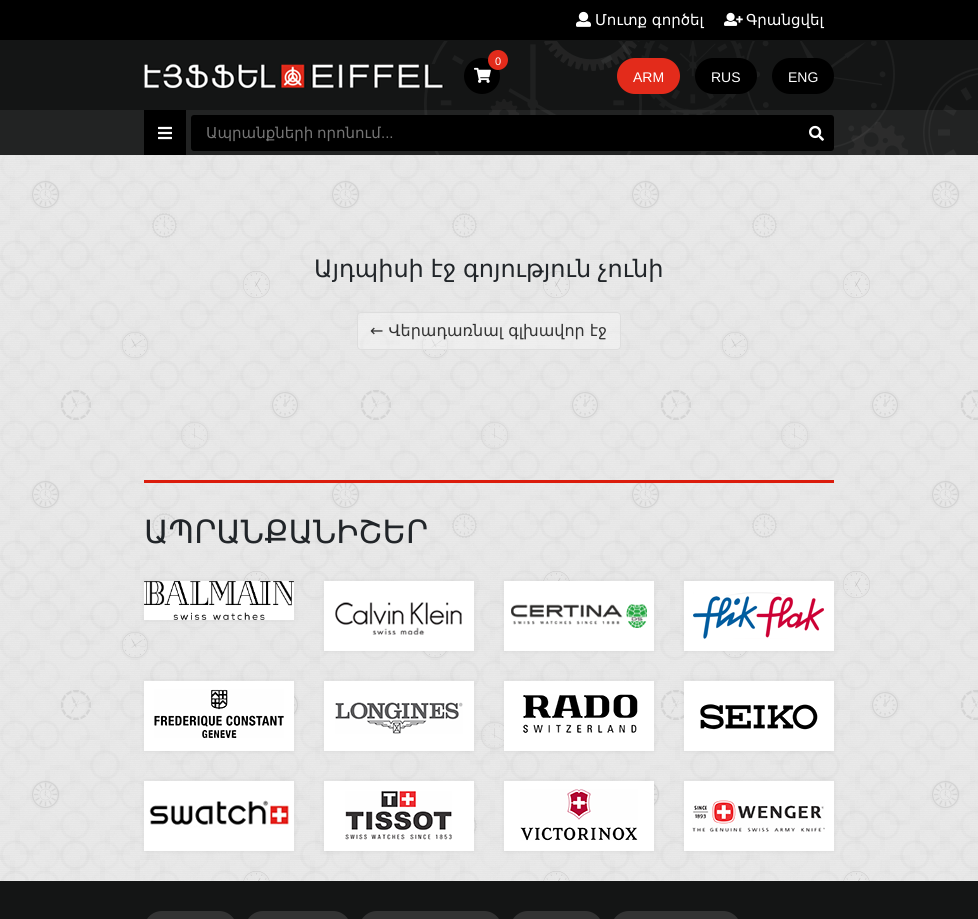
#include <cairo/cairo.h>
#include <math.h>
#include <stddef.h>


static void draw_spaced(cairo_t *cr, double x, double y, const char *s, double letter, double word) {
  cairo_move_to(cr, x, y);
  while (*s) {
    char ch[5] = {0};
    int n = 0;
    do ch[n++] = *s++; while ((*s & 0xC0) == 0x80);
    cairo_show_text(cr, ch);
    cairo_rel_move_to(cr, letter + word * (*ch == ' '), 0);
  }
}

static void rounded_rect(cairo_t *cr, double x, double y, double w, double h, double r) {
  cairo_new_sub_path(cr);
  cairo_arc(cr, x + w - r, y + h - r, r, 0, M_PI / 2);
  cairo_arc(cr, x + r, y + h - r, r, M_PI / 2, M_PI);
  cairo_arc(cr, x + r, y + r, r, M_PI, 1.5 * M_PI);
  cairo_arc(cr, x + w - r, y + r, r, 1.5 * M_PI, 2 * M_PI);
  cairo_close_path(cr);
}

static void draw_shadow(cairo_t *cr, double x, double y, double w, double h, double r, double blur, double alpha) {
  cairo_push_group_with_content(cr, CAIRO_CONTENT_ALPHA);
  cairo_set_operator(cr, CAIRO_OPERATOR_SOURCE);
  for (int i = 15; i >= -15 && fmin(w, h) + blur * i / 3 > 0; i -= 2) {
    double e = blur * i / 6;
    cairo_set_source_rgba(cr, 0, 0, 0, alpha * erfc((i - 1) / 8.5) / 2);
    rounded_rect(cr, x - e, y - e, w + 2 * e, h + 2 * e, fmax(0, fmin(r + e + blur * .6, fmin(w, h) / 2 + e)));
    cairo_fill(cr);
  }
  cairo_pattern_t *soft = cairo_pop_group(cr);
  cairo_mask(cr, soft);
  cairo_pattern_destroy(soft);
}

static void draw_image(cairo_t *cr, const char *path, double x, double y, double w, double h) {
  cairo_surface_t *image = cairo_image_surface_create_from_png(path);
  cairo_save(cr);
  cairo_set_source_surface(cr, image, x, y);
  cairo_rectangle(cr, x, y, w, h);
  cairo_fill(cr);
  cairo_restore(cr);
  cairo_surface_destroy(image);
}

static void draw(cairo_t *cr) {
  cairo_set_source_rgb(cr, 1, 1, 1);
  cairo_paint(cr);
  draw_image(cr, "images/1.png", 0, 155, 978, 726);
  cairo_set_source_rgb(cr, 0, 0, 0);
  cairo_rectangle(cr, 0, 0, 978, 40);
  cairo_fill(cr);
  draw_image(cr, "images/2.png", 576, 11, 15, 16);
  draw_image(cr, "images/3.png", 724, 12, 19, 14);
  cairo_set_source_rgb(cr, 20 / 255.0, 21 / 255.0, 21 / 255.0);
  cairo_rectangle(cr, 0, 40, 978, 115);
  cairo_fill(cr);
  draw_image(cr, "images/4.png", 424, 41, 554, 114);
  cairo_set_source_rgb(cr, 0, 0, 0);
  cairo_arc(cr, 482, 76, 18, 0, 2 * M_PI);
  cairo_fill(cr);
  draw_image(cr, "images/5.png", 474, 67, 17, 16);
  cairo_set_source_rgb(cr, 227 / 255.0, 43 / 255.0, 27 / 255.0);
  cairo_arc(cr, 498, 60, 10, 0, 2 * M_PI);
  cairo_fill(cr);
  draw_image(cr, "images/6.png", 144, 64, 300, 24);
  rounded_rect(cr, 617, 58, 63, 36, 18);
  cairo_fill(cr);
  cairo_set_source_rgb(cr, 0, 0, 0);
  rounded_rect(cr, 695, 58, 62, 36, 18);
  cairo_fill(cr);
  rounded_rect(cr, 772, 58, 62, 36, 18);
  cairo_fill(cr);
  cairo_set_source_rgba(cr, 1, 1, 1, 0.06);
  cairo_rectangle(cr, 0, 110, 978, 45);
  cairo_fill(cr);
  cairo_set_source_rgb(cr, 0, 0, 0);
  cairo_rectangle(cr, 144, 110, 42, 45);
  cairo_fill(cr);
  draw_image(cr, "images/7.png", 158, 126, 14, 14);
  rounded_rect(cr, 191, 115, 643, 36, 3);
  cairo_fill(cr);
  draw_image(cr, "images/8.png", 809, 125, 15, 16);
  cairo_set_source_rgba(cr, 1, 1, 1, 0.29);
  rounded_rect(cr, 357.5, 312.5, 263, 37, 3.5);
  cairo_fill_preserve(cr);
  cairo_set_source_rgb(cr, 221 / 255.0, 221 / 255.0, 221 / 255.0);
  cairo_set_line_width(cr, 1);
  cairo_stroke(cr);
  cairo_set_source_rgb(cr, 219 / 255.0, 28 / 255.0, 12 / 255.0);
  cairo_rectangle(cr, 144, 480, 690, 3);
  cairo_fill(cr);
  cairo_set_source_rgb(cr, 0, 0, 0);
  draw_shadow(cr, 144, 581, 150, 39, 0, 2.5, 0.07);
  draw_image(cr, "images/9.png", 144, 581, 150, 39);
  draw_shadow(cr, 324, 581, 150, 70, 0, 2.5, 0.07);
  cairo_set_source_rgb(cr, 1, 1, 1);
  cairo_rectangle(cr, 324, 581, 150, 70);
  cairo_fill(cr);
  draw_image(cr, "images/10.png", 335, 602, 127, 33);
  cairo_set_source_rgb(cr, 0, 0, 0);
  draw_shadow(cr, 504, 581, 150, 70, 0, 2.5, 0.07);
  cairo_set_source_rgb(cr, 1, 1, 1);
  cairo_rectangle(cr, 504, 581, 150, 70);
  cairo_fill(cr);
  draw_image(cr, "images/11.png", 511, 604, 136, 24);
  cairo_set_source_rgb(cr, 0, 0, 0);
  draw_shadow(cr, 684, 581, 150, 70, 0, 2.5, 0.07);
  cairo_set_source_rgb(cr, 1, 1, 1);
  cairo_rectangle(cr, 684, 581, 150, 70);
  cairo_fill(cr);
  draw_image(cr, "images/12.png", 693, 592, 131, 47);
  cairo_set_source_rgb(cr, 0, 0, 0);
  draw_shadow(cr, 144, 681, 150, 70, 0, 2.5, 0.07);
  cairo_set_source_rgb(cr, 1, 1, 1);
  cairo_rectangle(cr, 144, 681, 150, 70);
  cairo_fill(cr);
  draw_image(cr, "images/13.png", 154, 689, 130, 49);
  cairo_set_source_rgb(cr, 0, 0, 0);
  draw_shadow(cr, 324, 681, 150, 70, 0, 2.5, 0.07);
  cairo_set_source_rgb(cr, 1, 1, 1);
  cairo_rectangle(cr, 324, 681, 150, 70);
  cairo_fill(cr);
  draw_image(cr, "images/14.png", 335, 702, 128, 32);
  cairo_set_source_rgb(cr, 0, 0, 0);
  draw_shadow(cr, 504, 681, 150, 70, 0, 2.5, 0.07);
  cairo_set_source_rgb(cr, 1, 1, 1);
  cairo_rectangle(cr, 504, 681, 150, 70);
  cairo_fill(cr);
  draw_image(cr, "images/15.png", 523, 694, 115, 39);
  cairo_set_source_rgb(cr, 0, 0, 0);
  draw_shadow(cr, 684, 681, 150, 70, 0, 2.5, 0.07);
  cairo_set_source_rgb(cr, 1, 1, 1);
  cairo_rectangle(cr, 684, 681, 150, 70);
  cairo_fill(cr);
  draw_image(cr, "images/16.png", 700, 704, 118, 26);
  cairo_set_source_rgb(cr, 0, 0, 0);
  draw_shadow(cr, 144, 781, 150, 70, 0, 2.5, 0.07);
  cairo_set_source_rgb(cr, 1, 1, 1);
  cairo_rectangle(cr, 144, 781, 150, 70);
  cairo_fill(cr);
  draw_image(cr, "images/17.png", 149, 800, 140, 28);
  cairo_set_source_rgb(cr, 0, 0, 0);
  draw_shadow(cr, 324, 781, 150, 70, 0, 2.5, 0.07);
  cairo_set_source_rgb(cr, 1, 1, 1);
  cairo_rectangle(cr, 324, 781, 150, 70);
  cairo_fill(cr);
  draw_image(cr, "images/18.png", 345, 791, 107, 49);
  cairo_set_source_rgb(cr, 0, 0, 0);
  draw_shadow(cr, 504, 781, 150, 70, 0, 2.5, 0.07);
  cairo_set_source_rgb(cr, 1, 1, 1);
  cairo_rectangle(cr, 504, 781, 150, 70);
  cairo_fill(cr);
  draw_image(cr, "images/19.png", 520, 789, 118, 52);
  cairo_set_source_rgb(cr, 0, 0, 0);
  draw_shadow(cr, 684, 781, 150, 70, 0, 2.5, 0.07);
  cairo_set_source_rgb(cr, 1, 1, 1);
  cairo_rectangle(cr, 684, 781, 150, 70);
  cairo_fill(cr);
  draw_image(cr, "images/20.png", 692, 800, 133, 32);
  cairo_set_source_rgb(cr, 20 / 255.0, 21 / 255.0, 21 / 255.0);
  cairo_rectangle(cr, 0, 881, 978, 38);
  cairo_fill(cr);
  cairo_set_source_rgb(cr, 51 / 255.0, 51 / 255.0, 51 / 255.0);
  rounded_rect(cr, 144, 911, 93, 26, 18);
  cairo_fill(cr);
  rounded_rect(cr, 245, 911, 106, 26, 18);
  cairo_fill(cr);
  rounded_rect(cr, 359, 911, 143, 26, 18);
  cairo_fill(cr);
  rounded_rect(cr, 510, 911, 93, 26, 18);
  cairo_fill(cr);
  rounded_rect(cr, 611, 911, 130, 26, 18);
  cairo_fill(cr);
  cairo_select_font_face(cr, "DejaVu Sans", CAIRO_FONT_SLANT_NORMAL, CAIRO_FONT_WEIGHT_NORMAL);
  cairo_set_font_size(cr, 15);
  cairo_set_source_rgb(cr, 1, 1, 1);
  cairo_move_to(cr, 595, 25);
  cairo_show_text(cr, "Մուտք գործել");
  cairo_move_to(cr, 746, 25);
  cairo_show_text(cr, "Գրանցվել");
  cairo_select_font_face(cr, "Liberation Sans", CAIRO_FONT_SLANT_NORMAL, CAIRO_FONT_WEIGHT_NORMAL);
  cairo_set_font_size(cr, 11);
  cairo_move_to(cr, 495, 65);
  cairo_show_text(cr, "0");
  cairo_set_font_size(cr, 14);
  cairo_move_to(cr, 633, 82);
  cairo_show_text(cr, "ARM");
  cairo_move_to(cr, 711, 82);
  cairo_show_text(cr, "RUS");
  cairo_move_to(cr, 788, 82);
  cairo_show_text(cr, "ENG");
  cairo_select_font_face(cr, "DejaVu Sans", CAIRO_FONT_SLANT_NORMAL, CAIRO_FONT_WEIGHT_NORMAL);
  cairo_set_font_size(cr, 15);
  cairo_set_source_rgb(cr, 117 / 255.0, 117 / 255.0, 117 / 255.0);
  draw_spaced(cr, 206, 138, "Ապրանքների որոնում", 0, -1);
  cairo_select_font_face(cr, "Liberation Sans", CAIRO_FONT_SLANT_NORMAL, CAIRO_FONT_WEIGHT_NORMAL);
  cairo_move_to(cr, 381, 138);
  cairo_show_text(cr, "...");
  cairo_select_font_face(cr, "DejaVu Sans", CAIRO_FONT_SLANT_NORMAL, CAIRO_FONT_WEIGHT_NORMAL);
  cairo_set_font_size(cr, 24);
  cairo_set_source_rgb(cr, 33 / 255.0, 37 / 255.0, 41 / 255.0);
  draw_spaced(cr, 314, 277, "Այդպիսի էջ գոյություն չունի", 0, -1);
  cairo_set_font_size(cr, 16);
  cairo_set_source_rgb(cr, 51 / 255.0, 51 / 255.0, 51 / 255.0);
  cairo_move_to(cr, 370, 336);
  cairo_show_text(cr, "← Վերադառնալ գլխավոր էջ");
  cairo_set_font_size(cr, 32);
  cairo_set_source_rgb(cr, 33 / 255.0, 37 / 255.0, 41 / 255.0);
  cairo_move_to(cr, 144, 543);
  cairo_show_text(cr, "ԱՊՐԱՆՔԱՆԻՇԵՐ");
}

int main(void) {
  cairo_surface_t *surface = cairo_image_surface_create(CAIRO_FORMAT_RGB24, 978, 919);
  cairo_t *cr = cairo_create(surface);
  cairo_font_options_t *options = cairo_font_options_create();
  cairo_font_options_set_hint_metrics(options, CAIRO_HINT_METRICS_OFF);
  cairo_font_options_set_hint_style(options, CAIRO_HINT_STYLE_NONE);
  cairo_set_font_options(cr, options);
  cairo_set_miter_limit(cr, 4);
  draw(cr);
  cairo_surface_write_to_png(surface, "out.png");
  cairo_font_options_destroy(options);
  cairo_destroy(cr);
  cairo_surface_destroy(surface);
  return 0;
}
